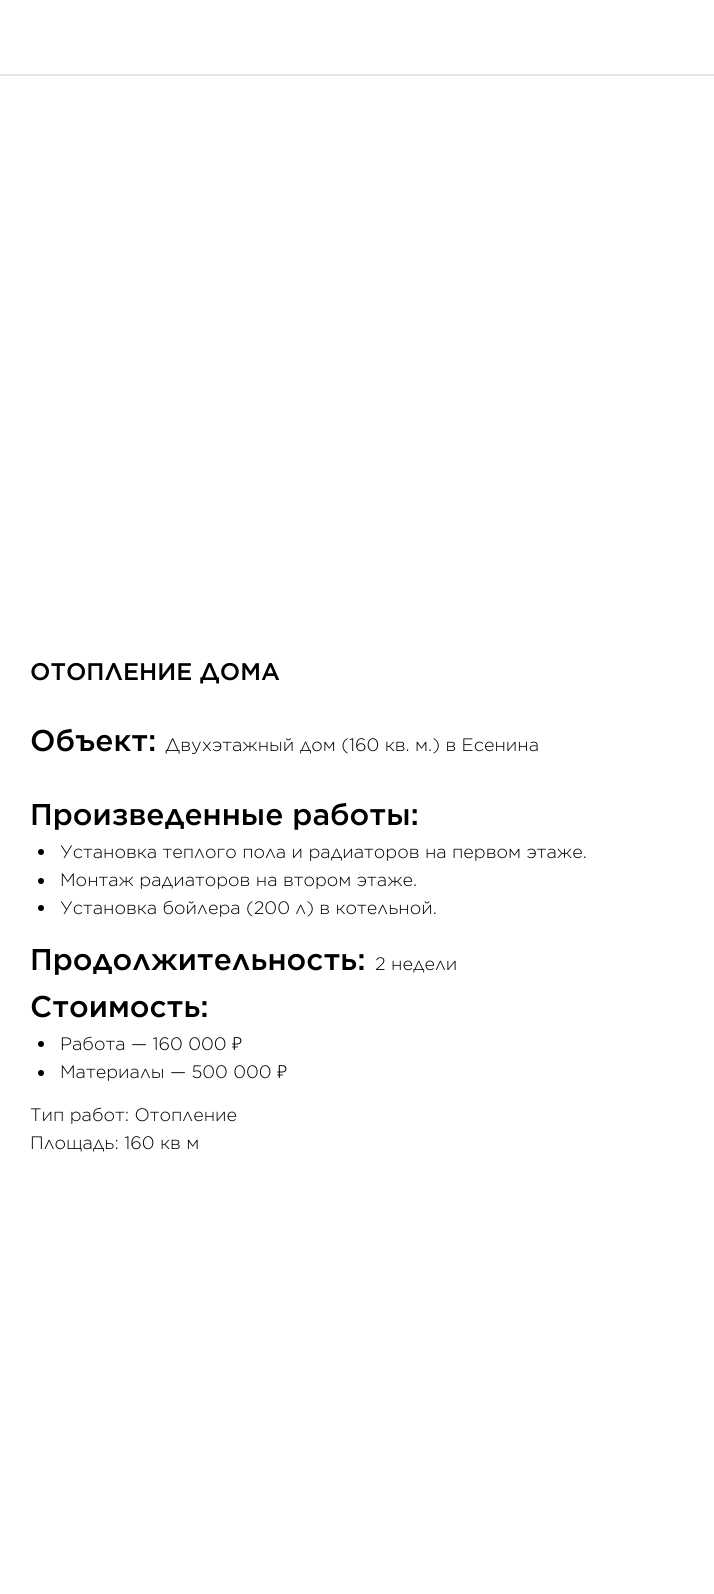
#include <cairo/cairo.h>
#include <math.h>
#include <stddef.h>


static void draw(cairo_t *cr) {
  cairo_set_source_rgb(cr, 1, 1, 1);
  cairo_paint(cr);
  cairo_set_source_rgb(cr, 230 / 255.0, 230 / 255.0, 230 / 255.0);
  cairo_rectangle(cr, 0, 74, 714, 2);
  cairo_fill(cr);
  cairo_set_source_rgb(cr, 0, 0, 0);
  cairo_arc(cr, 41, 852, 3, 0, 2 * M_PI);
  cairo_fill(cr);
  cairo_arc(cr, 41, 881, 3, 0, 2 * M_PI);
  cairo_fill(cr);
  cairo_arc(cr, 41, 908, 3, 0, 2 * M_PI);
  cairo_fill(cr);
  cairo_arc(cr, 41, 1044, 3, 0, 2 * M_PI);
  cairo_fill(cr);
  cairo_arc(cr, 41, 1073, 3, 0, 2 * M_PI);
  cairo_fill(cr);
  cairo_select_font_face(cr, "Gotham Medium", CAIRO_FONT_SLANT_NORMAL, CAIRO_FONT_WEIGHT_NORMAL);
  cairo_set_font_size(cr, 24);
  cairo_move_to(cr, 30, 680);
  cairo_show_text(cr, "ОТОПЛЕНИЕ ДОМА");
  cairo_set_font_size(cr, 30);
  cairo_move_to(cr, 30, 751);
  cairo_show_text(cr, "Объект:");
  cairo_select_font_face(cr, "Gotham Light", CAIRO_FONT_SLANT_NORMAL, CAIRO_FONT_WEIGHT_NORMAL);
  cairo_set_font_size(cr, 18);
  cairo_move_to(cr, 165, 751);
  cairo_show_text(cr, "Двухэтажный дом (160 кв. м.) в Есенина");
  cairo_select_font_face(cr, "Gotham Medium", CAIRO_FONT_SLANT_NORMAL, CAIRO_FONT_WEIGHT_NORMAL);
  cairo_set_font_size(cr, 30);
  cairo_move_to(cr, 30, 825);
  cairo_show_text(cr, "Произведенные работы:");
  cairo_select_font_face(cr, "Gotham Light", CAIRO_FONT_SLANT_NORMAL, CAIRO_FONT_WEIGHT_NORMAL);
  cairo_set_font_size(cr, 18);
  cairo_move_to(cr, 60, 858);
  cairo_show_text(cr, "Установка теплого пола и радиаторов на первом этаже.");
  cairo_move_to(cr, 60, 886);
  cairo_show_text(cr, "Монтаж радиаторов на втором этаже.");
  cairo_move_to(cr, 60, 914);
  cairo_show_text(cr, "Установка бойлера (200 л) в котельной.");
  cairo_select_font_face(cr, "Gotham Medium", CAIRO_FONT_SLANT_NORMAL, CAIRO_FONT_WEIGHT_NORMAL);
  cairo_set_font_size(cr, 30);
  cairo_move_to(cr, 30, 970);
  cairo_show_text(cr, "Продолжительность:");
  cairo_select_font_face(cr, "Gotham Light", CAIRO_FONT_SLANT_NORMAL, CAIRO_FONT_WEIGHT_NORMAL);
  cairo_set_font_size(cr, 18);
  cairo_move_to(cr, 375, 970);
  cairo_show_text(cr, "2 недели");
  cairo_select_font_face(cr, "Gotham Medium", CAIRO_FONT_SLANT_NORMAL, CAIRO_FONT_WEIGHT_NORMAL);
  cairo_set_font_size(cr, 30);
  cairo_move_to(cr, 30, 1017);
  cairo_show_text(cr, "Стоимость:");
  cairo_select_font_face(cr, "Gotham Light", CAIRO_FONT_SLANT_NORMAL, CAIRO_FONT_WEIGHT_NORMAL);
  cairo_set_font_size(cr, 18);
  cairo_move_to(cr, 60, 1050);
  cairo_show_text(cr, "Работа — 160 000");
  cairo_select_font_face(cr, "Noto Sans Light", CAIRO_FONT_SLANT_NORMAL, CAIRO_FONT_WEIGHT_NORMAL);
  cairo_move_to(cr, 232, 1050);
  cairo_show_text(cr, "₽");
  cairo_select_font_face(cr, "Gotham Light", CAIRO_FONT_SLANT_NORMAL, CAIRO_FONT_WEIGHT_NORMAL);
  cairo_move_to(cr, 60, 1078);
  cairo_show_text(cr, "Материалы — 500 000");
  cairo_select_font_face(cr, "Noto Sans Light", CAIRO_FONT_SLANT_NORMAL, CAIRO_FONT_WEIGHT_NORMAL);
  cairo_move_to(cr, 277, 1078);
  cairo_show_text(cr, "₽");
  cairo_select_font_face(cr, "Gotham Light", CAIRO_FONT_SLANT_NORMAL, CAIRO_FONT_WEIGHT_NORMAL);
  cairo_move_to(cr, 30, 1121);
  cairo_show_text(cr, "Тип работ: Отопление");
  cairo_move_to(cr, 30, 1149);
  cairo_show_text(cr, "Площадь: 160 кв м");
}

int main(void) {
  cairo_surface_t *surface = cairo_image_surface_create(CAIRO_FORMAT_RGB24, 714, 1594);
  cairo_t *cr = cairo_create(surface);
  cairo_font_options_t *options = cairo_font_options_create();
  cairo_font_options_set_hint_metrics(options, CAIRO_HINT_METRICS_OFF);
  cairo_font_options_set_hint_style(options, CAIRO_HINT_STYLE_NONE);
  cairo_set_font_options(cr, options);
  cairo_set_miter_limit(cr, 4);
  draw(cr);
  cairo_surface_write_to_png(surface, "out.png");
  cairo_font_options_destroy(options);
  cairo_destroy(cr);
  cairo_surface_destroy(surface);
  return 0;
}
